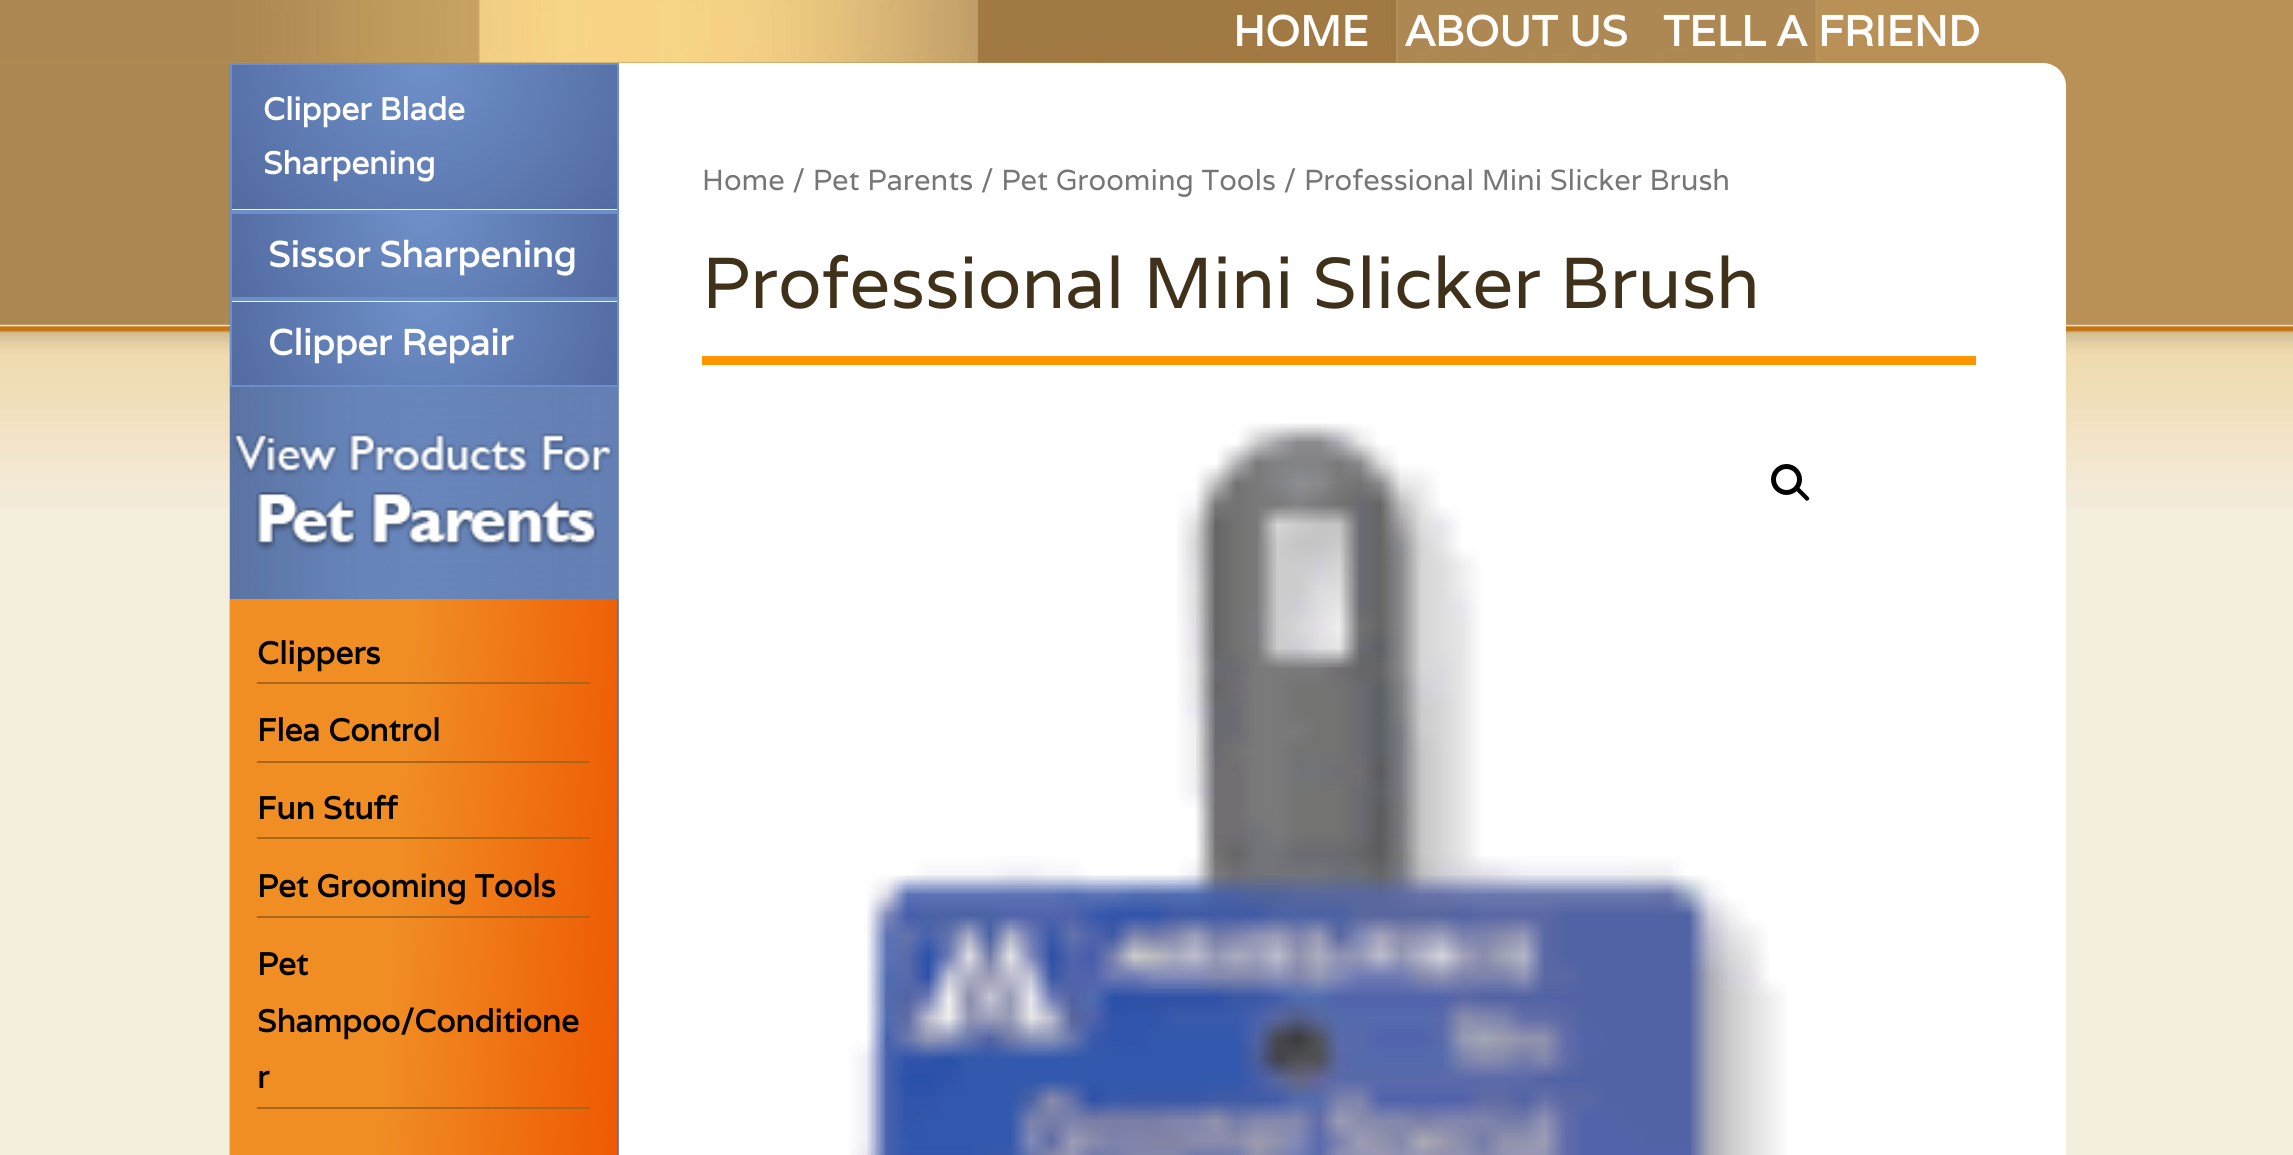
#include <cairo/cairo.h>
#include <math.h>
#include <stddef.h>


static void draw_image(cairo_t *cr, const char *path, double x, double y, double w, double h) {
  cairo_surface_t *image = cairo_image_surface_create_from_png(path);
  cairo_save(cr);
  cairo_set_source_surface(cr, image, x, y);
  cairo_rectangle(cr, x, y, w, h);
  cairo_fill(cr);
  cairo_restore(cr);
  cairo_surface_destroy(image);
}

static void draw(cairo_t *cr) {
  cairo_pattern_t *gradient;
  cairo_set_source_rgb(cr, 244 / 255.0, 238 / 255.0, 222 / 255.0);
  cairo_paint(cr);
  cairo_set_source_rgb(cr, 185 / 255.0, 145 / 255.0, 86 / 255.0);
  cairo_rectangle(cr, 0, 0, 2293, 63);
  cairo_fill(cr);
  draw_image(cr, "images/1.png", 0, 0, 1818, 63);
  draw_image(cr, "images/2.png", 0, 63, 2293, 445);
  cairo_set_source_rgb(cr, 1, 1, 1);
  cairo_new_path(cr);
  cairo_move_to(cr, 230, 63);
  cairo_line_to(cr, 2043, 63);
  cairo_curve_to(cr, 2055.5, 63, 2066, 73.5, 2066, 86);
  cairo_line_to(cr, 2066, 1155);
  cairo_curve_to(cr, 2066, 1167.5, 2055.5, 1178, 2043, 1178);
  cairo_line_to(cr, 230, 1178);
  cairo_close_path(cr);
  cairo_fill(cr);
  draw_image(cr, "images/3.png", 229, 63, 390, 1092);
  cairo_set_source_rgb(cr, 244 / 255.0, 244 / 255.0, 244 / 255.0);
  cairo_rectangle(cr, 232, 209, 385, 1);
  cairo_fill(cr);
  gradient = cairo_pattern_create_radial(424, 65, 0, 424, 65, 240);
  cairo_pattern_add_color_stop_rgba(gradient, 0, 111 / 255.0, 144 / 255.0, 201 / 255.0, 1);
  cairo_pattern_add_color_stop_rgba(gradient, 1, 82 / 255.0, 107 / 255.0, 161 / 255.0, 1);
  cairo_set_source(cr, gradient);
  cairo_pattern_destroy(gradient);
  cairo_rectangle(cr, 232, 65, 385, 144);
  cairo_fill(cr);
  cairo_rectangle(cr, 231, 64, 387, 147);
  cairo_set_source_rgb(cr, 109 / 255.0, 142 / 255.0, 201 / 255.0);
  cairo_stroke(cr);
  gradient = cairo_pattern_create_radial(424, 214, 0, 424, 214, 210);
  cairo_pattern_add_color_stop_rgba(gradient, 0, 111 / 255.0, 144 / 255.0, 201 / 255.0, 1);
  cairo_pattern_add_color_stop_rgba(gradient, 1, 82 / 255.0, 107 / 255.0, 161 / 255.0, 1);
  cairo_set_source(cr, gradient);
  cairo_pattern_destroy(gradient);
  cairo_rectangle(cr, 232, 214, 385, 83);
  cairo_fill(cr);
  cairo_rectangle(cr, 231, 213, 387, 85);
  cairo_set_source_rgb(cr, 109 / 255.0, 142 / 255.0, 201 / 255.0);
  cairo_stroke(cr);
  cairo_set_source_rgb(cr, 244 / 255.0, 244 / 255.0, 244 / 255.0);
  cairo_rectangle(cr, 232, 301, 385, 1);
  cairo_fill(cr);
  gradient = cairo_pattern_create_radial(424, 302, 0, 424, 302, 210);
  cairo_pattern_add_color_stop_rgba(gradient, 0, 111 / 255.0, 144 / 255.0, 201 / 255.0, 1);
  cairo_pattern_add_color_stop_rgba(gradient, 1, 82 / 255.0, 107 / 255.0, 161 / 255.0, 1);
  cairo_set_source(cr, gradient);
  cairo_pattern_destroy(gradient);
  cairo_rectangle(cr, 232, 302, 385, 83);
  cairo_fill(cr);
  cairo_rectangle(cr, 231, 300, 387, 86);
  cairo_set_source_rgb(cr, 109 / 255.0, 142 / 255.0, 201 / 255.0);
  cairo_stroke(cr);
  draw_image(cr, "images/4.png", 233, 433, 380, 118);
  gradient = cairo_pattern_create_linear(206, 938, 640, 968);
  cairo_pattern_add_color_stop_rgba(gradient, 0.42, 240 / 255.0, 142 / 255.0, 36 / 255.0, 1);
  cairo_pattern_add_color_stop_rgba(gradient, 1, 239 / 255.0, 87 / 255.0, 0, 1);
  cairo_set_source(cr, gradient);
  cairo_pattern_destroy(gradient);
  cairo_rectangle(cr, 230, 599, 387, 556);
  cairo_fill(cr);
  cairo_set_source_rgba(cr, 0, 0, 0, 0.1);
  cairo_rectangle(cr, 617, 599, 2, 556);
  cairo_fill(cr);
  cairo_set_source_rgb(cr, 170 / 255.0, 103 / 255.0, 27 / 255.0);
  cairo_rectangle(cr, 257, 682, 333, 2);
  cairo_fill(cr);
  cairo_rectangle(cr, 257, 761, 333, 2);
  cairo_fill(cr);
  cairo_rectangle(cr, 257, 837, 333, 2);
  cairo_fill(cr);
  cairo_rectangle(cr, 257, 916, 333, 2);
  cairo_fill(cr);
  cairo_rectangle(cr, 257, 1107, 333, 2);
  cairo_fill(cr);
  cairo_set_source_rgb(cr, 1, 150 / 255.0, 0);
  cairo_rectangle(cr, 702, 356, 1274, 9);
  cairo_fill(cr);
  draw_image(cr, "images/5.png", 849, 423, 937, 732);
  cairo_arc(cr, 1786.5, 479.5, 13, 0, 2 * M_PI);
  cairo_set_source_rgb(cr, 0, 0, 0);
  cairo_set_line_width(cr, 5);
  cairo_stroke(cr);
  cairo_new_path(cr);
  cairo_move_to(cr, 1796, 487.5);
  cairo_curve_to(cr, 1796.5, 486.5, 1798, 486.5, 1799, 487.5);
  cairo_line_to(cr, 1808.5, 497);
  cairo_curve_to(cr, 1809.5, 498, 1809.5, 499.5, 1808.5, 500);
  cairo_curve_to(cr, 1807.5, 501, 1806, 501, 1805.5, 500);
  cairo_line_to(cr, 1796, 490.5);
  cairo_curve_to(cr, 1795, 490, 1795, 488.5, 1796, 487.5);
  cairo_close_path(cr);
  cairo_fill(cr);
  cairo_select_font_face(cr, "Varela", CAIRO_FONT_SLANT_NORMAL, CAIRO_FONT_WEIGHT_BOLD);
  cairo_set_font_size(cr, 42.75);
  cairo_set_source_rgb(cr, 1, 1, 1);
  cairo_move_to(cr, 1233, 46);
  cairo_show_text(cr, "HOME");
  cairo_move_to(cr, 1405, 46);
  cairo_show_text(cr, "ABOUT US");
  cairo_move_to(cr, 1663, 46);
  cairo_show_text(cr, "TELL A FRIEND");
  cairo_set_font_size(cr, 31.5);
  cairo_move_to(cr, 263, 120);
  cairo_show_text(cr, "Clipper Blade");
  cairo_move_to(cr, 263, 174);
  cairo_show_text(cr, "Sharpening");
  cairo_set_font_size(cr, 36);
  cairo_move_to(cr, 268, 267);
  cairo_show_text(cr, "Sissor Sharpening");
  cairo_move_to(cr, 268, 355);
  cairo_show_text(cr, "Clipper Repair");
  cairo_set_font_size(cr, 31.5);
  cairo_set_source_rgb(cr, 0, 0, 0);
  cairo_move_to(cr, 257, 664);
  cairo_show_text(cr, "Clippers");
  cairo_move_to(cr, 257, 741);
  cairo_show_text(cr, "Flea Control");
  cairo_move_to(cr, 257, 819);
  cairo_show_text(cr, "Fun Stuff");
  cairo_move_to(cr, 257, 897);
  cairo_show_text(cr, "Pet Grooming Tools");
  cairo_move_to(cr, 257, 975);
  cairo_show_text(cr, "Pet");
  cairo_move_to(cr, 257, 1032);
  cairo_show_text(cr, "Shampoo/Conditione");
  cairo_move_to(cr, 257, 1088);
  cairo_show_text(cr, "r");
  cairo_select_font_face(cr, "Varela", CAIRO_FONT_SLANT_NORMAL, CAIRO_FONT_WEIGHT_NORMAL);
  cairo_set_font_size(cr, 29);
  cairo_set_source_rgb(cr, 118 / 255.0, 118 / 255.0, 118 / 255.0);
  cairo_move_to(cr, 702, 190);
  cairo_show_text(cr, "Home / Pet Parents / Pet Grooming Tools / Professional Mini Slicker Brush");
  cairo_set_font_size(cr, 72);
  cairo_set_source_rgb(cr, 64 / 255.0, 49 / 255.0, 27 / 255.0);
  cairo_move_to(cr, 702, 308);
  cairo_show_text(cr, "Professional Mini Slicker Brush");
}

int main(void) {
  cairo_surface_t *surface = cairo_image_surface_create(CAIRO_FORMAT_RGB24, 2293, 1155);
  cairo_t *cr = cairo_create(surface);
  cairo_font_options_t *options = cairo_font_options_create();
  cairo_font_options_set_hint_metrics(options, CAIRO_HINT_METRICS_OFF);
  cairo_font_options_set_hint_style(options, CAIRO_HINT_STYLE_NONE);
  cairo_set_font_options(cr, options);
  cairo_set_miter_limit(cr, 4);
  draw(cr);
  cairo_surface_write_to_png(surface, "out.png");
  cairo_font_options_destroy(options);
  cairo_destroy(cr);
  cairo_surface_destroy(surface);
  return 0;
}
